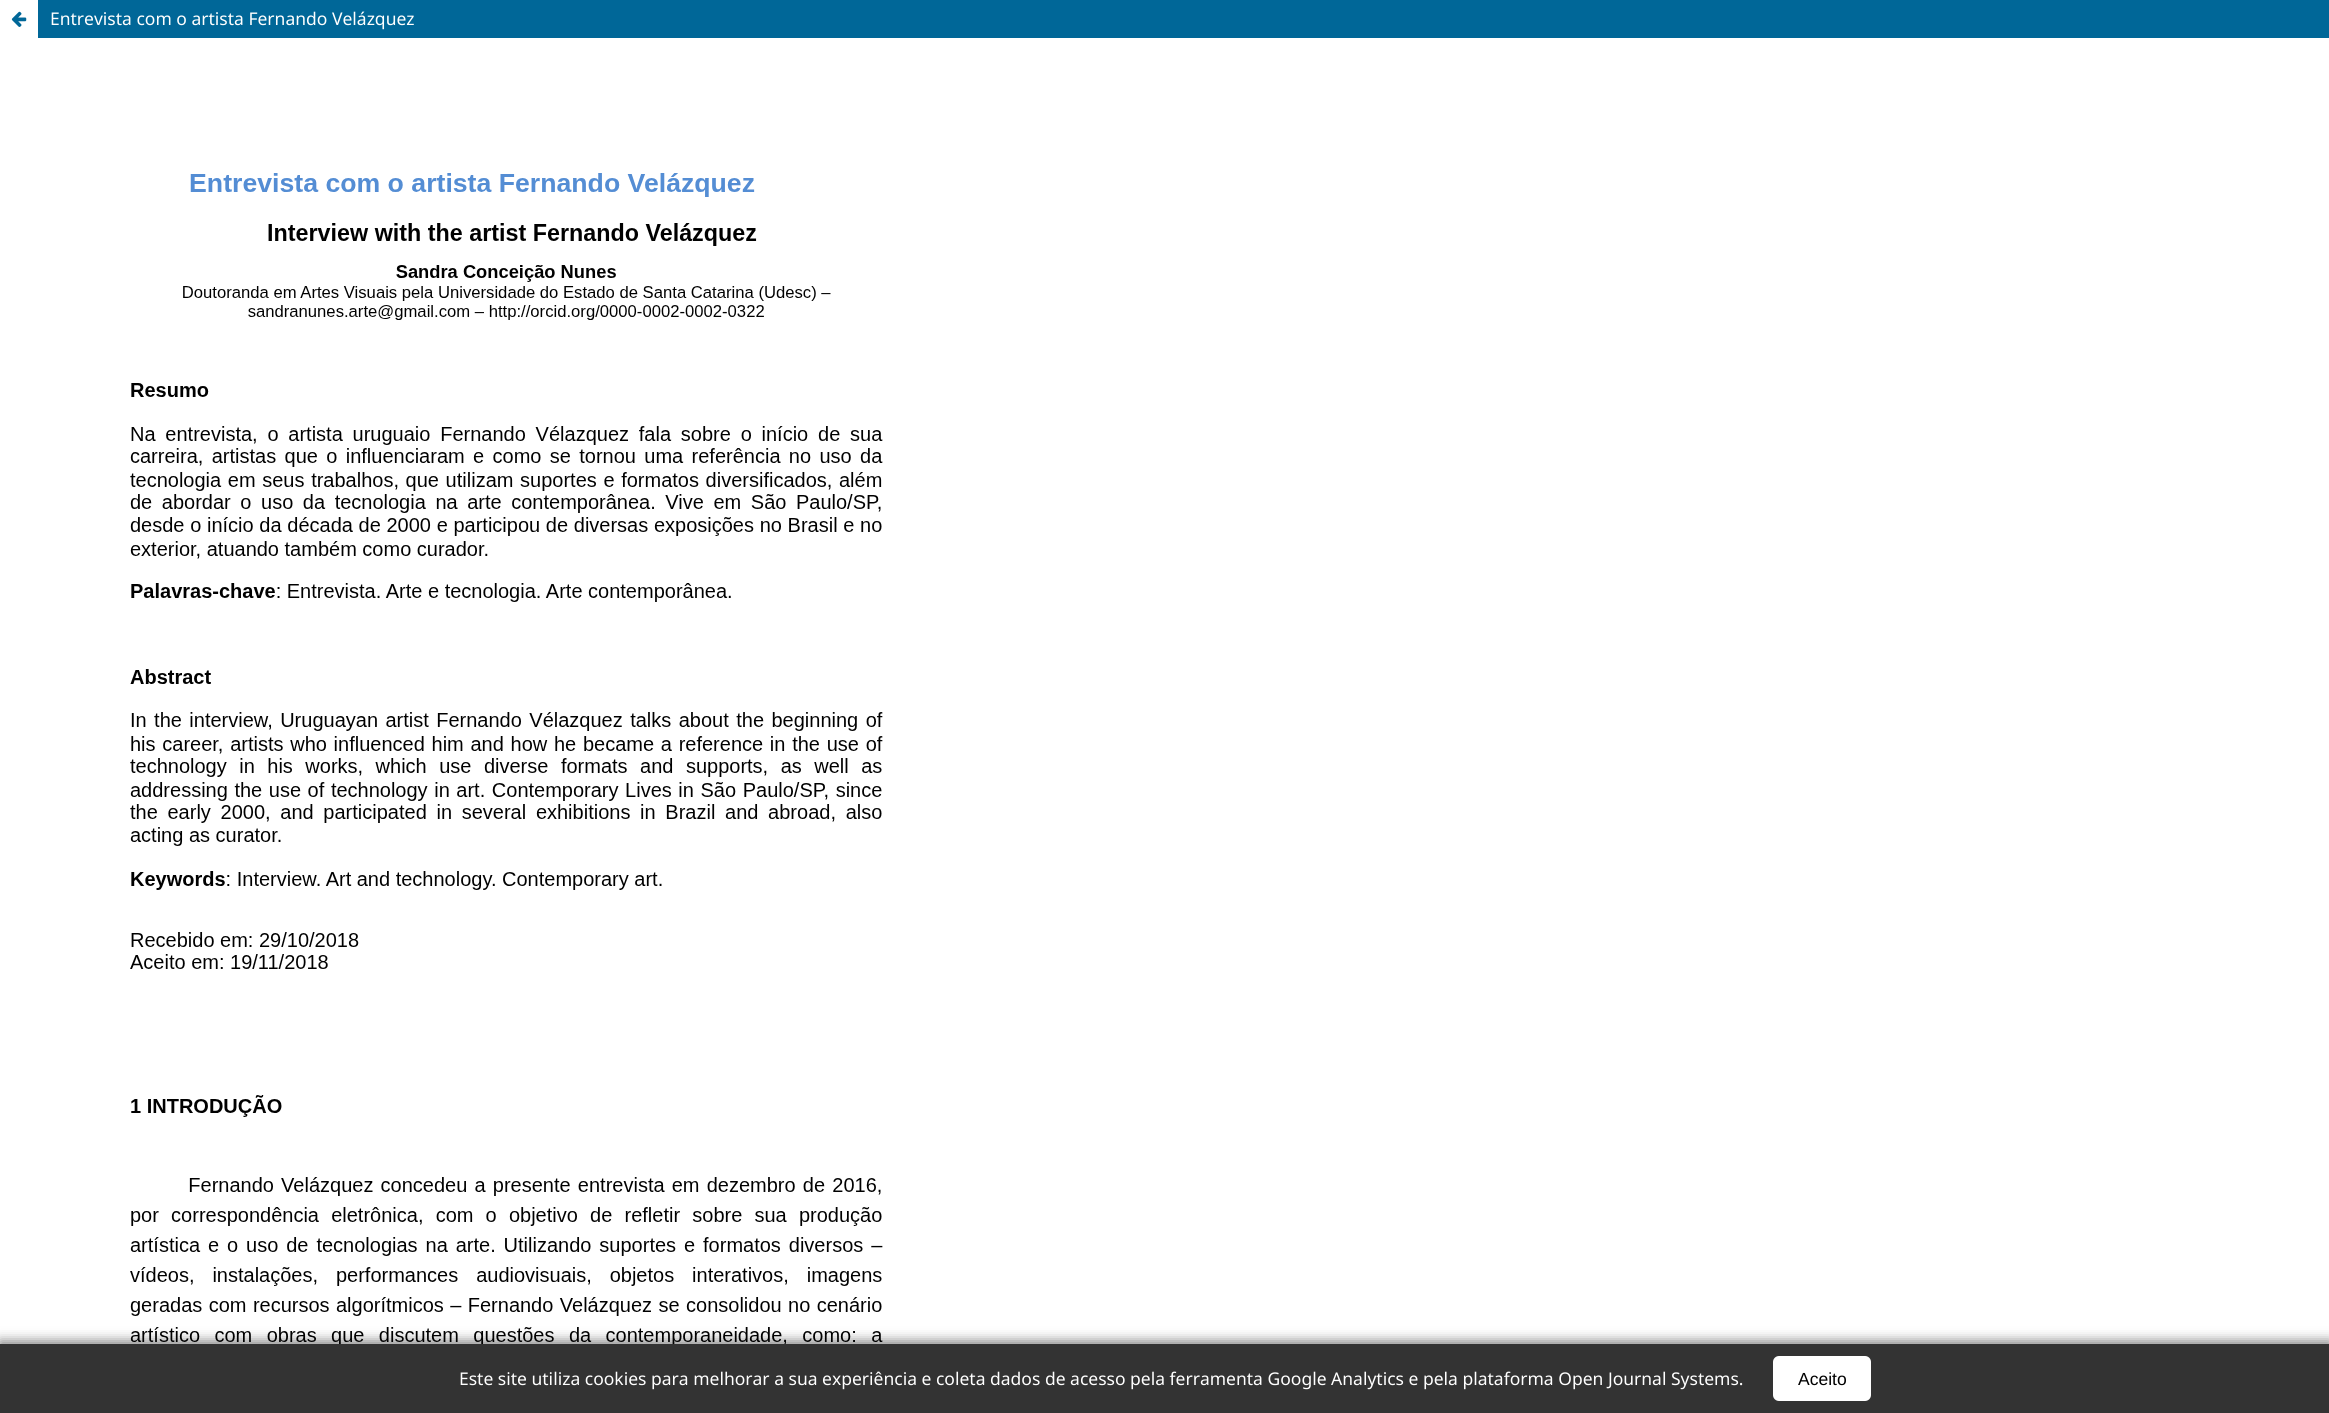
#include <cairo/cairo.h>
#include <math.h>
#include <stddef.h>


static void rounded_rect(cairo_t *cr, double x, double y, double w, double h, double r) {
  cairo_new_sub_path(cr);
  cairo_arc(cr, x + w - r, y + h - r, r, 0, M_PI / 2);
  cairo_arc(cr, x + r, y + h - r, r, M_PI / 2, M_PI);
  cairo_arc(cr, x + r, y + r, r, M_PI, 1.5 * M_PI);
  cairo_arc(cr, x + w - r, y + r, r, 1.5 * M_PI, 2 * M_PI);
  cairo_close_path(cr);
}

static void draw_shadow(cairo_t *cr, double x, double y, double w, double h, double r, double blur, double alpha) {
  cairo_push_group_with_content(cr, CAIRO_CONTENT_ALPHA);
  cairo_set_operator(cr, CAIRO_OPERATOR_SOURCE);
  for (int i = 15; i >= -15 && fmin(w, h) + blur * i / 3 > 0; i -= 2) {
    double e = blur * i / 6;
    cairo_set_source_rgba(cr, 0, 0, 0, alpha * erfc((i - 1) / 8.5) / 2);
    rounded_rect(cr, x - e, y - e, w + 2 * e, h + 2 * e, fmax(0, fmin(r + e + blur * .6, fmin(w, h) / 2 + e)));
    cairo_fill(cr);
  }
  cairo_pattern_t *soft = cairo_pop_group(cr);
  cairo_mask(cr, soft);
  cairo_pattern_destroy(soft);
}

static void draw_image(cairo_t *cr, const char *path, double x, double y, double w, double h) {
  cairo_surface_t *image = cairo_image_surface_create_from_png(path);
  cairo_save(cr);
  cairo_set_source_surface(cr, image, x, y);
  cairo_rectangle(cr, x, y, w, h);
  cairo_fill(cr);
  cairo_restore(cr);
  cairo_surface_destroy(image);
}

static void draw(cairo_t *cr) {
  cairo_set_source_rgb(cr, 1, 1, 1);
  cairo_paint(cr);
  cairo_set_source_rgb(cr, 0, 103 / 255.0, 152 / 255.0);
  cairo_rectangle(cr, 38, 0, 2291, 38);
  cairo_fill(cr);
  draw_image(cr, "images/1.png", 11, 11, 16, 16);
  draw_image(cr, "images/2.png", 130, 173, 753, 1171);
  cairo_set_source_rgb(cr, 0, 0, 0);
  draw_shadow(cr, 0, 1341, 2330, 70, 0, 6, 0.5);
  cairo_set_source_rgb(cr, 51 / 255.0, 51 / 255.0, 51 / 255.0);
  cairo_rectangle(cr, 0, 1344, 2329, 69);
  cairo_fill(cr);
  cairo_set_source_rgb(cr, 1, 1, 1);
  rounded_rect(cr, 1773, 1356, 98, 45, 6);
  cairo_fill(cr);
  cairo_select_font_face(cr, "Noto Sans", CAIRO_FONT_SLANT_NORMAL, CAIRO_FONT_WEIGHT_NORMAL);
  cairo_set_font_size(cr, 17.5);
  cairo_move_to(cr, 50, 25);
  cairo_show_text(cr, "Entrevista com o artista Fernando Velázquez");
  cairo_move_to(cr, 459, 1385);
  cairo_show_text(cr, "Este site utiliza cookies para melhorar a sua experiência e coleta dados de acesso pela ferramenta Google Analytics e pela plataforma Open Journal Systems.");
  cairo_select_font_face(cr, "Liberation Sans", CAIRO_FONT_SLANT_NORMAL, CAIRO_FONT_WEIGHT_NORMAL);
  cairo_set_source_rgb(cr, 0, 0, 0);
  cairo_move_to(cr, 1798, 1385);
  cairo_show_text(cr, "Aceito");
}

int main(void) {
  cairo_surface_t *surface = cairo_image_surface_create(CAIRO_FORMAT_RGB24, 2329, 1413);
  cairo_t *cr = cairo_create(surface);
  cairo_font_options_t *options = cairo_font_options_create();
  cairo_font_options_set_hint_metrics(options, CAIRO_HINT_METRICS_OFF);
  cairo_font_options_set_hint_style(options, CAIRO_HINT_STYLE_NONE);
  cairo_set_font_options(cr, options);
  cairo_set_miter_limit(cr, 4);
  draw(cr);
  cairo_surface_write_to_png(surface, "out.png");
  cairo_font_options_destroy(options);
  cairo_destroy(cr);
  cairo_surface_destroy(surface);
  return 0;
}
